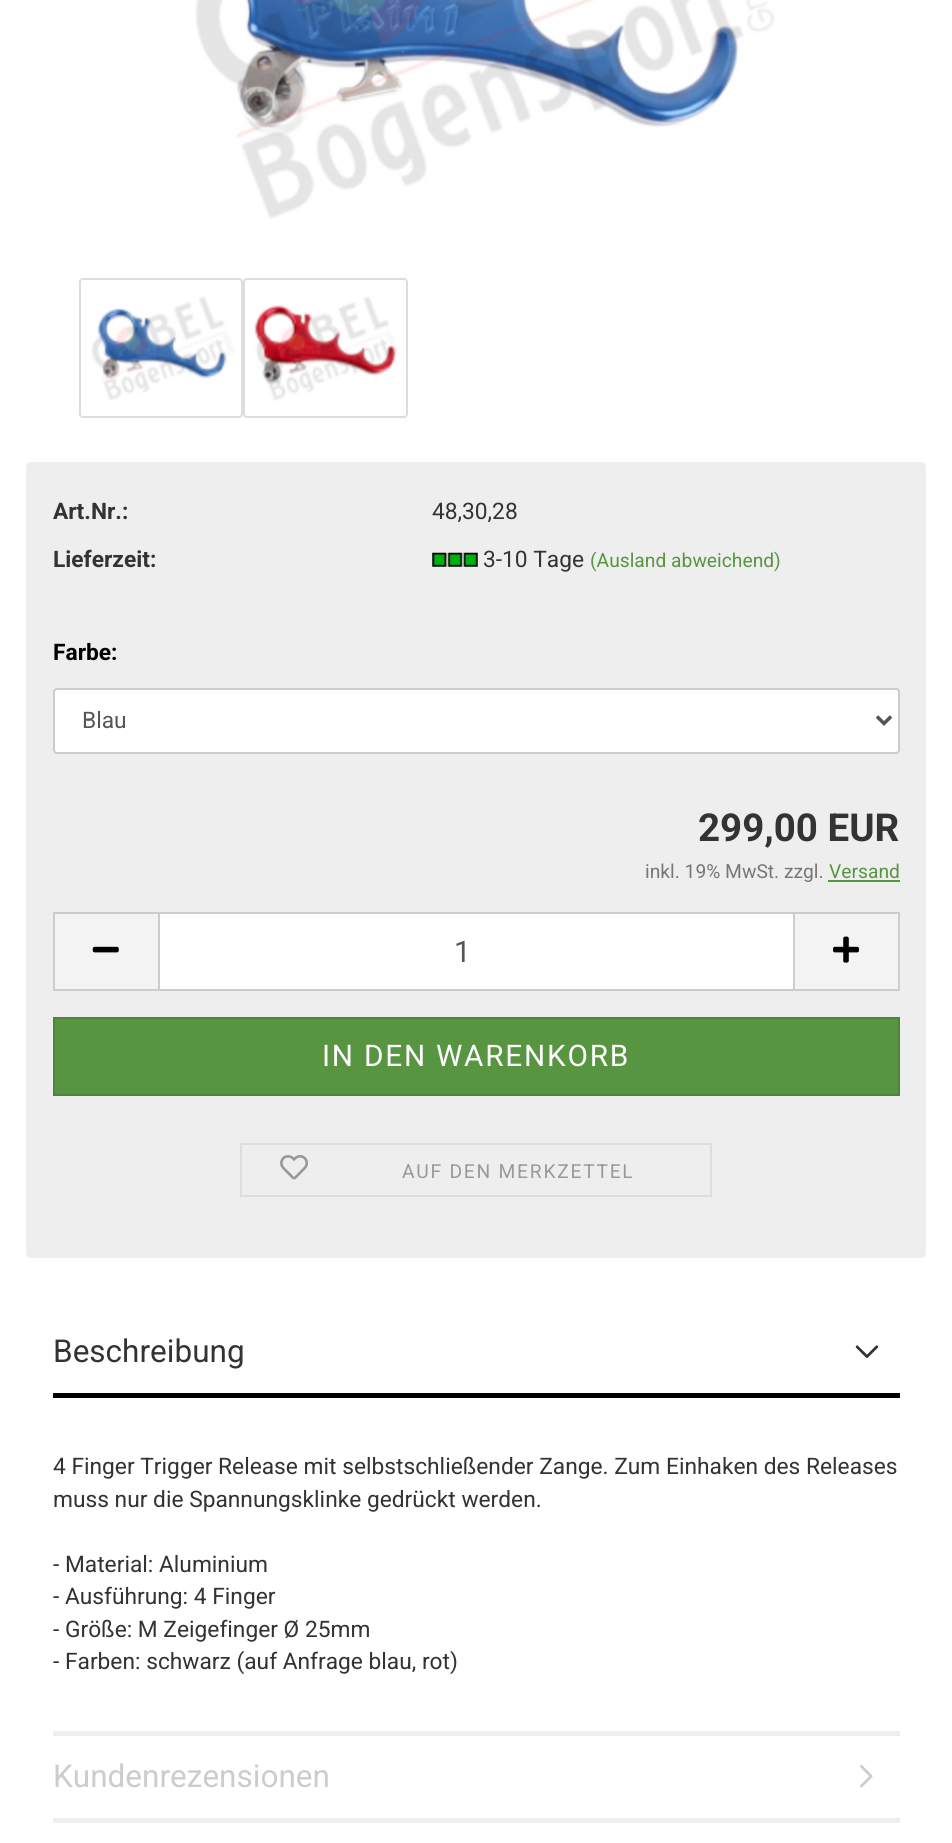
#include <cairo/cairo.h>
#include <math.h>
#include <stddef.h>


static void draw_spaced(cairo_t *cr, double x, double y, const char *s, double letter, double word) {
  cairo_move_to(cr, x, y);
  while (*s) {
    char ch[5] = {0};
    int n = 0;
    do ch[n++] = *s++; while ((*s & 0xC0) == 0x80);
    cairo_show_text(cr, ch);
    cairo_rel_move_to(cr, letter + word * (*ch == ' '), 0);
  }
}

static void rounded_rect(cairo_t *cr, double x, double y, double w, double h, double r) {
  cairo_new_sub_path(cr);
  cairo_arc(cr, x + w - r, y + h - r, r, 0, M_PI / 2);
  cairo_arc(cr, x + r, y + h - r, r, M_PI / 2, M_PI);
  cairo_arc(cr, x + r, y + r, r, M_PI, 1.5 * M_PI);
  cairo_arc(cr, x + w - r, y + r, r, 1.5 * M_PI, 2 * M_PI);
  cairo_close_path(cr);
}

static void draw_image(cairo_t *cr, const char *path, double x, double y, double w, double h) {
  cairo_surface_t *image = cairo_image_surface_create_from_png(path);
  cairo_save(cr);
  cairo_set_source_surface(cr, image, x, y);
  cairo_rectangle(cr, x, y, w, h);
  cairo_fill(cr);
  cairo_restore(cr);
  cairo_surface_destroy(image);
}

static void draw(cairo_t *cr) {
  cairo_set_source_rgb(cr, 1, 1, 1);
  cairo_paint(cr);
  draw_image(cr, "images/1.png", 195, 0, 580, 219);
  rounded_rect(cr, 80, 279, 162, 138, 3);
  cairo_set_source_rgb(cr, 221 / 255.0, 221 / 255.0, 221 / 255.0);
  cairo_stroke(cr);
  draw_image(cr, "images/2.png", 91, 296, 144, 105);
  rounded_rect(cr, 244, 279, 163, 138, 3);
  cairo_stroke(cr);
  draw_image(cr, "images/3.png", 254, 296, 145, 105);
  cairo_set_source_rgb(cr, 238 / 255.0, 238 / 255.0, 238 / 255.0);
  rounded_rect(cr, 26, 462, 900, 796, 4);
  cairo_fill(cr);
  draw_image(cr, "images/4.png", 432, 552, 46, 15);
  cairo_set_source_rgb(cr, 1, 1, 1);
  rounded_rect(cr, 54, 689, 845, 64, 3);
  cairo_fill_preserve(cr);
  cairo_set_source_rgb(cr, 204 / 255.0, 204 / 255.0, 204 / 255.0);
  cairo_stroke(cr);
  cairo_new_path(cr);
  cairo_move_to(cr, 877, 716.5);
  cairo_line_to(cr, 884, 723.5);
  cairo_line_to(cr, 891, 716.5);
  cairo_set_source_rgb(cr, 85 / 255.0, 85 / 255.0, 85 / 255.0);
  cairo_set_line_width(cr, 3.5);
  cairo_stroke(cr);
  cairo_set_source_rgb(cr, 88 / 255.0, 149 / 255.0, 65 / 255.0);
  cairo_rectangle(cr, 828, 880, 72, 2);
  cairo_fill(cr);
  cairo_set_source_rgb(cr, 243 / 255.0, 243 / 255.0, 243 / 255.0);
  cairo_rectangle(cr, 55, 914, 103, 75);
  cairo_fill(cr);
  cairo_set_source_rgb(cr, 204 / 255.0, 204 / 255.0, 204 / 255.0);
  cairo_rectangle(cr, 53, 912, 105, 2);
  cairo_fill(cr);
  cairo_rectangle(cr, 53, 989, 105, 2);
  cairo_fill(cr);
  cairo_rectangle(cr, 53, 912, 2, 79);
  cairo_fill(cr);
  draw_image(cr, "images/5.png", 92, 946, 27, 7);
  cairo_set_source_rgb(cr, 1, 1, 1);
  cairo_rectangle(cr, 159, 913, 635, 77);
  cairo_fill_preserve(cr);
  cairo_set_source_rgb(cr, 204 / 255.0, 204 / 255.0, 204 / 255.0);
  cairo_set_line_width(cr, 2);
  cairo_stroke(cr);
  cairo_set_source_rgb(cr, 243 / 255.0, 243 / 255.0, 243 / 255.0);
  cairo_rectangle(cr, 795, 914, 103, 75);
  cairo_fill(cr);
  cairo_set_source_rgb(cr, 204 / 255.0, 204 / 255.0, 204 / 255.0);
  cairo_rectangle(cr, 795, 912, 105, 2);
  cairo_fill(cr);
  cairo_rectangle(cr, 898, 912, 2, 79);
  cairo_fill(cr);
  cairo_rectangle(cr, 795, 989, 105, 2);
  cairo_fill(cr);
  draw_image(cr, "images/6.png", 833, 936, 27, 27);
  cairo_set_source_rgb(cr, 88 / 255.0, 149 / 255.0, 65 / 255.0);
  cairo_rectangle(cr, 54, 1018, 845, 77);
  cairo_fill_preserve(cr);
  cairo_set_source_rgb(cr, 78 / 255.0, 131 / 255.0, 57 / 255.0);
  cairo_stroke(cr);
  cairo_rectangle(cr, 241, 1144, 470, 52);
  cairo_set_source_rgb(cr, 221 / 255.0, 221 / 255.0, 221 / 255.0);
  cairo_stroke(cr);
  draw_image(cr, "images/7.png", 280, 1155, 28, 25);
  cairo_set_source_rgb(cr, 0, 0, 0);
  cairo_rectangle(cr, 53, 1393, 847, 5);
  cairo_fill(cr);
  draw_image(cr, "images/8.png", 855, 1345, 24, 13);
  cairo_set_source_rgb(cr, 238 / 255.0, 238 / 255.0, 238 / 255.0);
  cairo_rectangle(cr, 53, 1731, 847, 5);
  cairo_fill(cr);
  cairo_rectangle(cr, 53, 1818, 847, 5);
  cairo_fill(cr);
  draw_image(cr, "images/9.png", 860, 1765, 13, 23);
  cairo_select_font_face(cr, "Roboto", CAIRO_FONT_SLANT_NORMAL, CAIRO_FONT_WEIGHT_BOLD);
  cairo_set_font_size(cr, 22.75);
  cairo_set_source_rgb(cr, 51 / 255.0, 51 / 255.0, 51 / 255.0);
  cairo_move_to(cr, 53, 519);
  cairo_show_text(cr, "Art.Nr.:");
  cairo_select_font_face(cr, "Roboto", CAIRO_FONT_SLANT_NORMAL, CAIRO_FONT_WEIGHT_NORMAL);
  cairo_move_to(cr, 432, 519);
  cairo_show_text(cr, "48,30,28");
  cairo_select_font_face(cr, "Roboto", CAIRO_FONT_SLANT_NORMAL, CAIRO_FONT_WEIGHT_BOLD);
  cairo_move_to(cr, 53, 567);
  cairo_show_text(cr, "Lieferzeit:");
  cairo_select_font_face(cr, "Roboto", CAIRO_FONT_SLANT_NORMAL, CAIRO_FONT_WEIGHT_NORMAL);
  cairo_move_to(cr, 483, 567);
  cairo_show_text(cr, "3-10 Tage");
  cairo_set_font_size(cr, 19.25);
  cairo_set_source_rgb(cr, 88 / 255.0, 149 / 255.0, 65 / 255.0);
  cairo_move_to(cr, 590, 567);
  cairo_show_text(cr, "(Ausland abweichend)");
  cairo_select_font_face(cr, "Roboto", CAIRO_FONT_SLANT_NORMAL, CAIRO_FONT_WEIGHT_BOLD);
  cairo_set_font_size(cr, 22.75);
  cairo_set_source_rgb(cr, 0, 0, 0);
  cairo_move_to(cr, 53, 660);
  cairo_show_text(cr, "Farbe:");
  cairo_select_font_face(cr, "Roboto", CAIRO_FONT_SLANT_NORMAL, CAIRO_FONT_WEIGHT_NORMAL);
  cairo_set_source_rgb(cr, 85 / 255.0, 85 / 255.0, 85 / 255.0);
  cairo_move_to(cr, 82, 728);
  cairo_show_text(cr, "Blau");
  cairo_select_font_face(cr, "Roboto", CAIRO_FONT_SLANT_NORMAL, CAIRO_FONT_WEIGHT_BOLD);
  cairo_set_font_size(cr, 38.5);
  cairo_set_source_rgb(cr, 51 / 255.0, 51 / 255.0, 51 / 255.0);
  cairo_move_to(cr, 698, 841);
  cairo_show_text(cr, "299,00 EUR");
  cairo_select_font_face(cr, "Roboto", CAIRO_FONT_SLANT_NORMAL, CAIRO_FONT_WEIGHT_NORMAL);
  cairo_set_font_size(cr, 19.25);
  cairo_set_source_rgb(cr, 119 / 255.0, 119 / 255.0, 119 / 255.0);
  cairo_move_to(cr, 645, 878);
  cairo_show_text(cr, "inkl. 19% MwSt. zzgl.");
  cairo_set_source_rgb(cr, 88 / 255.0, 149 / 255.0, 65 / 255.0);
  cairo_move_to(cr, 829, 878);
  cairo_show_text(cr, "Versand");
  cairo_set_font_size(cr, 29.75);
  cairo_set_source_rgb(cr, 85 / 255.0, 85 / 255.0, 85 / 255.0);
  cairo_move_to(cr, 454, 962);
  cairo_show_text(cr, "1");
  cairo_set_source_rgb(cr, 1, 1, 1);
  draw_spaced(cr, 322, 1066, "IN DEN WARENKORB", 1.75, 0);
  cairo_set_font_size(cr, 19.25);
  cairo_set_source_rgb(cr, 153 / 255.0, 153 / 255.0, 153 / 255.0);
  draw_spaced(cr, 402, 1178, "AUF DEN MERKZETTEL", 1.75, 0);
  cairo_set_font_size(cr, 31.5);
  cairo_set_source_rgb(cr, 51 / 255.0, 51 / 255.0, 51 / 255.0);
  cairo_move_to(cr, 53, 1362);
  cairo_show_text(cr, "Beschreibung");
  cairo_set_font_size(cr, 22.75);
  cairo_move_to(cr, 53, 1474);
  cairo_show_text(cr, "4 Finger Trigger Release mit selbstschließender Zange. Zum Einhaken des Releases");
  cairo_move_to(cr, 53, 1507);
  cairo_show_text(cr, "muss nur die Spannungsklinke gedrückt werden.");
  cairo_move_to(cr, 53, 1572);
  cairo_show_text(cr, "- Material: Aluminium");
  cairo_move_to(cr, 53, 1604);
  cairo_show_text(cr, "- Ausführung: 4 Finger");
  cairo_move_to(cr, 53, 1637);
  cairo_show_text(cr, "- Größe: M Zeigefinger Ø 25mm");
  cairo_move_to(cr, 53, 1669);
  cairo_show_text(cr, "- Farben: schwarz (auf Anfrage blau, rot)");
  cairo_set_font_size(cr, 31.5);
  cairo_set_source_rgb(cr, 204 / 255.0, 204 / 255.0, 204 / 255.0);
  cairo_move_to(cr, 53, 1787);
  cairo_show_text(cr, "Kundenrezensionen");
}

int main(void) {
  cairo_surface_t *surface = cairo_image_surface_create(CAIRO_FORMAT_RGB24, 952, 1843);
  cairo_t *cr = cairo_create(surface);
  cairo_font_options_t *options = cairo_font_options_create();
  cairo_font_options_set_hint_metrics(options, CAIRO_HINT_METRICS_OFF);
  cairo_font_options_set_hint_style(options, CAIRO_HINT_STYLE_NONE);
  cairo_set_font_options(cr, options);
  cairo_set_miter_limit(cr, 4);
  draw(cr);
  cairo_surface_write_to_png(surface, "out.png");
  cairo_font_options_destroy(options);
  cairo_destroy(cr);
  cairo_surface_destroy(surface);
  return 0;
}
